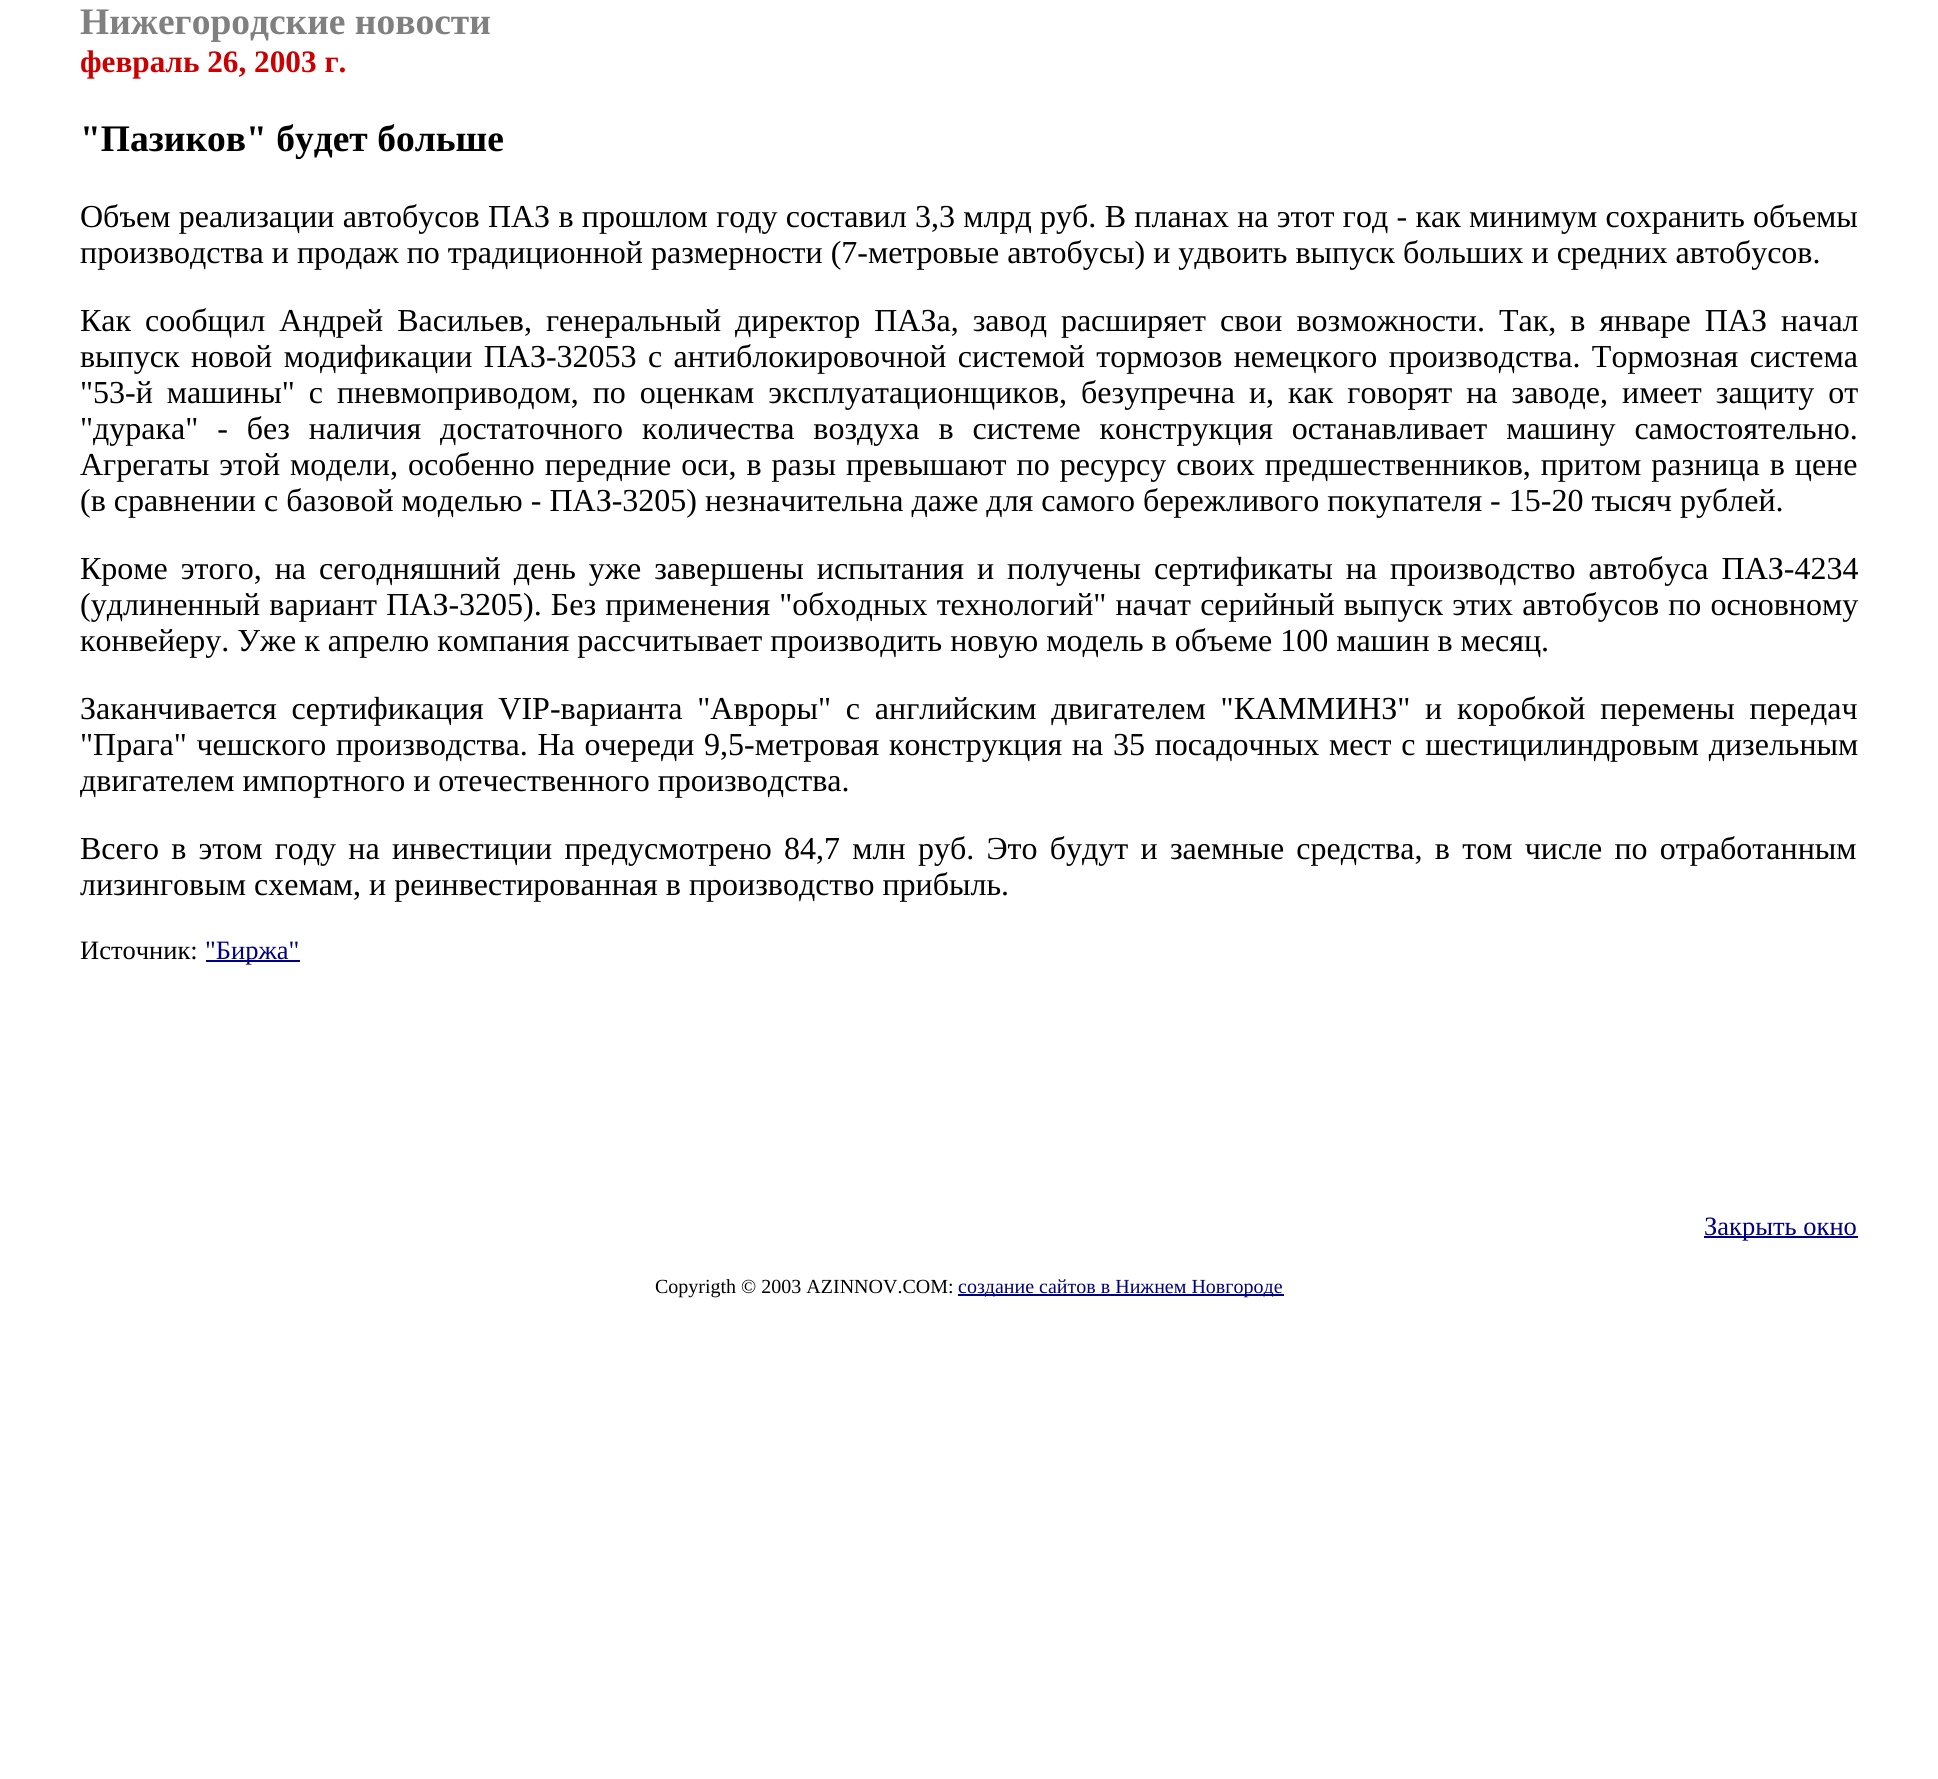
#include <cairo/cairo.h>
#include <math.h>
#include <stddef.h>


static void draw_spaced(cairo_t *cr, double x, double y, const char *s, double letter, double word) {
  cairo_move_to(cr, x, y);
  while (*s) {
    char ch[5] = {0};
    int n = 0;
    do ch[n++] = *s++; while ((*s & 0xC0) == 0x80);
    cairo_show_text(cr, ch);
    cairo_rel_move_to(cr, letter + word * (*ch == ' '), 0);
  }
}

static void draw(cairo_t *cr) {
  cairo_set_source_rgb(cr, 1, 1, 1);
  cairo_paint(cr);
  cairo_set_source_rgb(cr, 0, 0, 128 / 255.0);
  cairo_rectangle(cr, 206, 960, 94, 2);
  cairo_fill(cr);
  cairo_rectangle(cr, 1704, 1236, 154, 2);
  cairo_fill(cr);
  cairo_rectangle(cr, 958, 1294, 326, 2);
  cairo_fill(cr);
  cairo_select_font_face(cr, "Liberation Serif", CAIRO_FONT_SLANT_NORMAL, CAIRO_FONT_WEIGHT_BOLD);
  cairo_set_font_size(cr, 37.5);
  cairo_set_source_rgb(cr, 128 / 255.0, 128 / 255.0, 128 / 255.0);
  cairo_move_to(cr, 80, 34);
  cairo_show_text(cr, "Нижегородские новости");
  cairo_set_font_size(cr, 31.25);
  cairo_set_source_rgb(cr, 204 / 255.0, 0, 0);
  cairo_move_to(cr, 80, 72);
  cairo_show_text(cr, "февраль 26, 2003 г.");
  cairo_set_font_size(cr, 37.5);
  cairo_set_source_rgb(cr, 0, 0, 0);
  cairo_move_to(cr, 80, 151);
  cairo_show_text(cr, "\"Пазиков\" будет больше");
  cairo_select_font_face(cr, "Liberation Serif", CAIRO_FONT_SLANT_NORMAL, CAIRO_FONT_WEIGHT_NORMAL);
  cairo_set_font_size(cr, 32);
  draw_spaced(cr, 80, 227, "Объем реализации автобусов ПАЗ в прошлом году составил 3,3 млрд руб. В планах на этот год - как минимум сохранить объемы", 0, 0.3);
  cairo_move_to(cr, 80, 263);
  cairo_show_text(cr, "производства и продаж по традиционной размерности (7-метровые автобусы) и удвоить выпуск больших и средних автобусов.");
  draw_spaced(cr, 80, 331, "Как сообщил Андрей Васильев, генеральный директор ПАЗа, завод расширяет свои возможности. Так, в январе ПАЗ начал", 0, 6);
  draw_spaced(cr, 80, 367, "выпуск новой модификации ПАЗ-32053 с антиблокировочной системой тормозов немецкого производства. Тормозная система", 0, 3.4);
  draw_spaced(cr, 80, 403, "\"53-й машины\" с пневмоприводом, по оценкам эксплуатационщиков, безупречна и, как говорят на заводе, имеет защиту от", 0, 6);
  draw_spaced(cr, 80, 439, "\"дурака\" - без наличия достаточного количества воздуха в системе конструкция останавливает машину самостоятельно.", 0, 10.9);
  draw_spaced(cr, 80, 475, "Агрегаты этой модели, особенно передние оси, в разы превышают по ресурсу своих предшественников, притом разница в цене", 0, 2);
  cairo_move_to(cr, 80, 511);
  cairo_show_text(cr, "(в сравнении с базовой моделью - ПАЗ-3205) незначительна даже для самого бережливого покупателя - 15-20 тысяч рублей.");
  draw_spaced(cr, 80, 579, "Кроме этого, на сегодняшний день уже завершены испытания и получены сертификаты на производство автобуса ПАЗ-4234", 0, 5);
  draw_spaced(cr, 80, 615, "(удлиненный вариант ПАЗ-3205). Без применения \"обходных технологий\" начат серийный выпуск этих автобусов по основному", 0, 1.1);
  cairo_move_to(cr, 80, 651);
  cairo_show_text(cr, "конвейеру. Уже к апрелю компания рассчитывает производить новую модель в объеме 100 машин в месяц.");
  draw_spaced(cr, 80, 719, "Заканчивается сертификация VIP-варианта \"Авроры\" с английским двигателем \"КАММИНЗ\" и коробкой перемены передач", 0, 6.75);
  draw_spaced(cr, 80, 755, "\"Прага\" чешского производства. На очереди 9,5-метровая конструкция на 35 посадочных мест с шестицилиндровым дизельным", 0, 1.7);
  cairo_move_to(cr, 80, 791);
  cairo_show_text(cr, "двигателем импортного и отечественного производства.");
  draw_spaced(cr, 80, 859, "Всего в этом году на инвестиции предусмотрено 84,7 млн руб. Это будут и заемные средства, в том числе по отработанным", 0, 4.25);
  cairo_move_to(cr, 80, 895);
  cairo_show_text(cr, "лизинговым схемам, и реинвестированная в производство прибыль.");
  cairo_set_font_size(cr, 26.5);
  cairo_move_to(cr, 80, 959);
  cairo_show_text(cr, "Источник:");
  cairo_set_source_rgb(cr, 0, 0, 128 / 255.0);
  cairo_move_to(cr, 205, 959);
  cairo_show_text(cr, "\"Биржа\"");
  cairo_move_to(cr, 1704, 1235);
  cairo_show_text(cr, "Закрыть окно");
  cairo_set_font_size(cr, 20);
  cairo_set_source_rgb(cr, 0, 0, 0);
  cairo_move_to(cr, 655, 1293);
  cairo_show_text(cr, "Copyrigth © 2003 AZINNOV.COM:");
  cairo_set_source_rgb(cr, 0, 0, 128 / 255.0);
  cairo_move_to(cr, 958, 1293);
  cairo_show_text(cr, "создание сайтов в Нижнем Новгороде");
}

int main(void) {
  cairo_surface_t *surface = cairo_image_surface_create(CAIRO_FORMAT_RGB24, 1938, 1779);
  cairo_t *cr = cairo_create(surface);
  cairo_font_options_t *options = cairo_font_options_create();
  cairo_font_options_set_hint_metrics(options, CAIRO_HINT_METRICS_OFF);
  cairo_font_options_set_hint_style(options, CAIRO_HINT_STYLE_NONE);
  cairo_set_font_options(cr, options);
  cairo_set_miter_limit(cr, 4);
  draw(cr);
  cairo_surface_write_to_png(surface, "out.png");
  cairo_font_options_destroy(options);
  cairo_destroy(cr);
  cairo_surface_destroy(surface);
  return 0;
}
